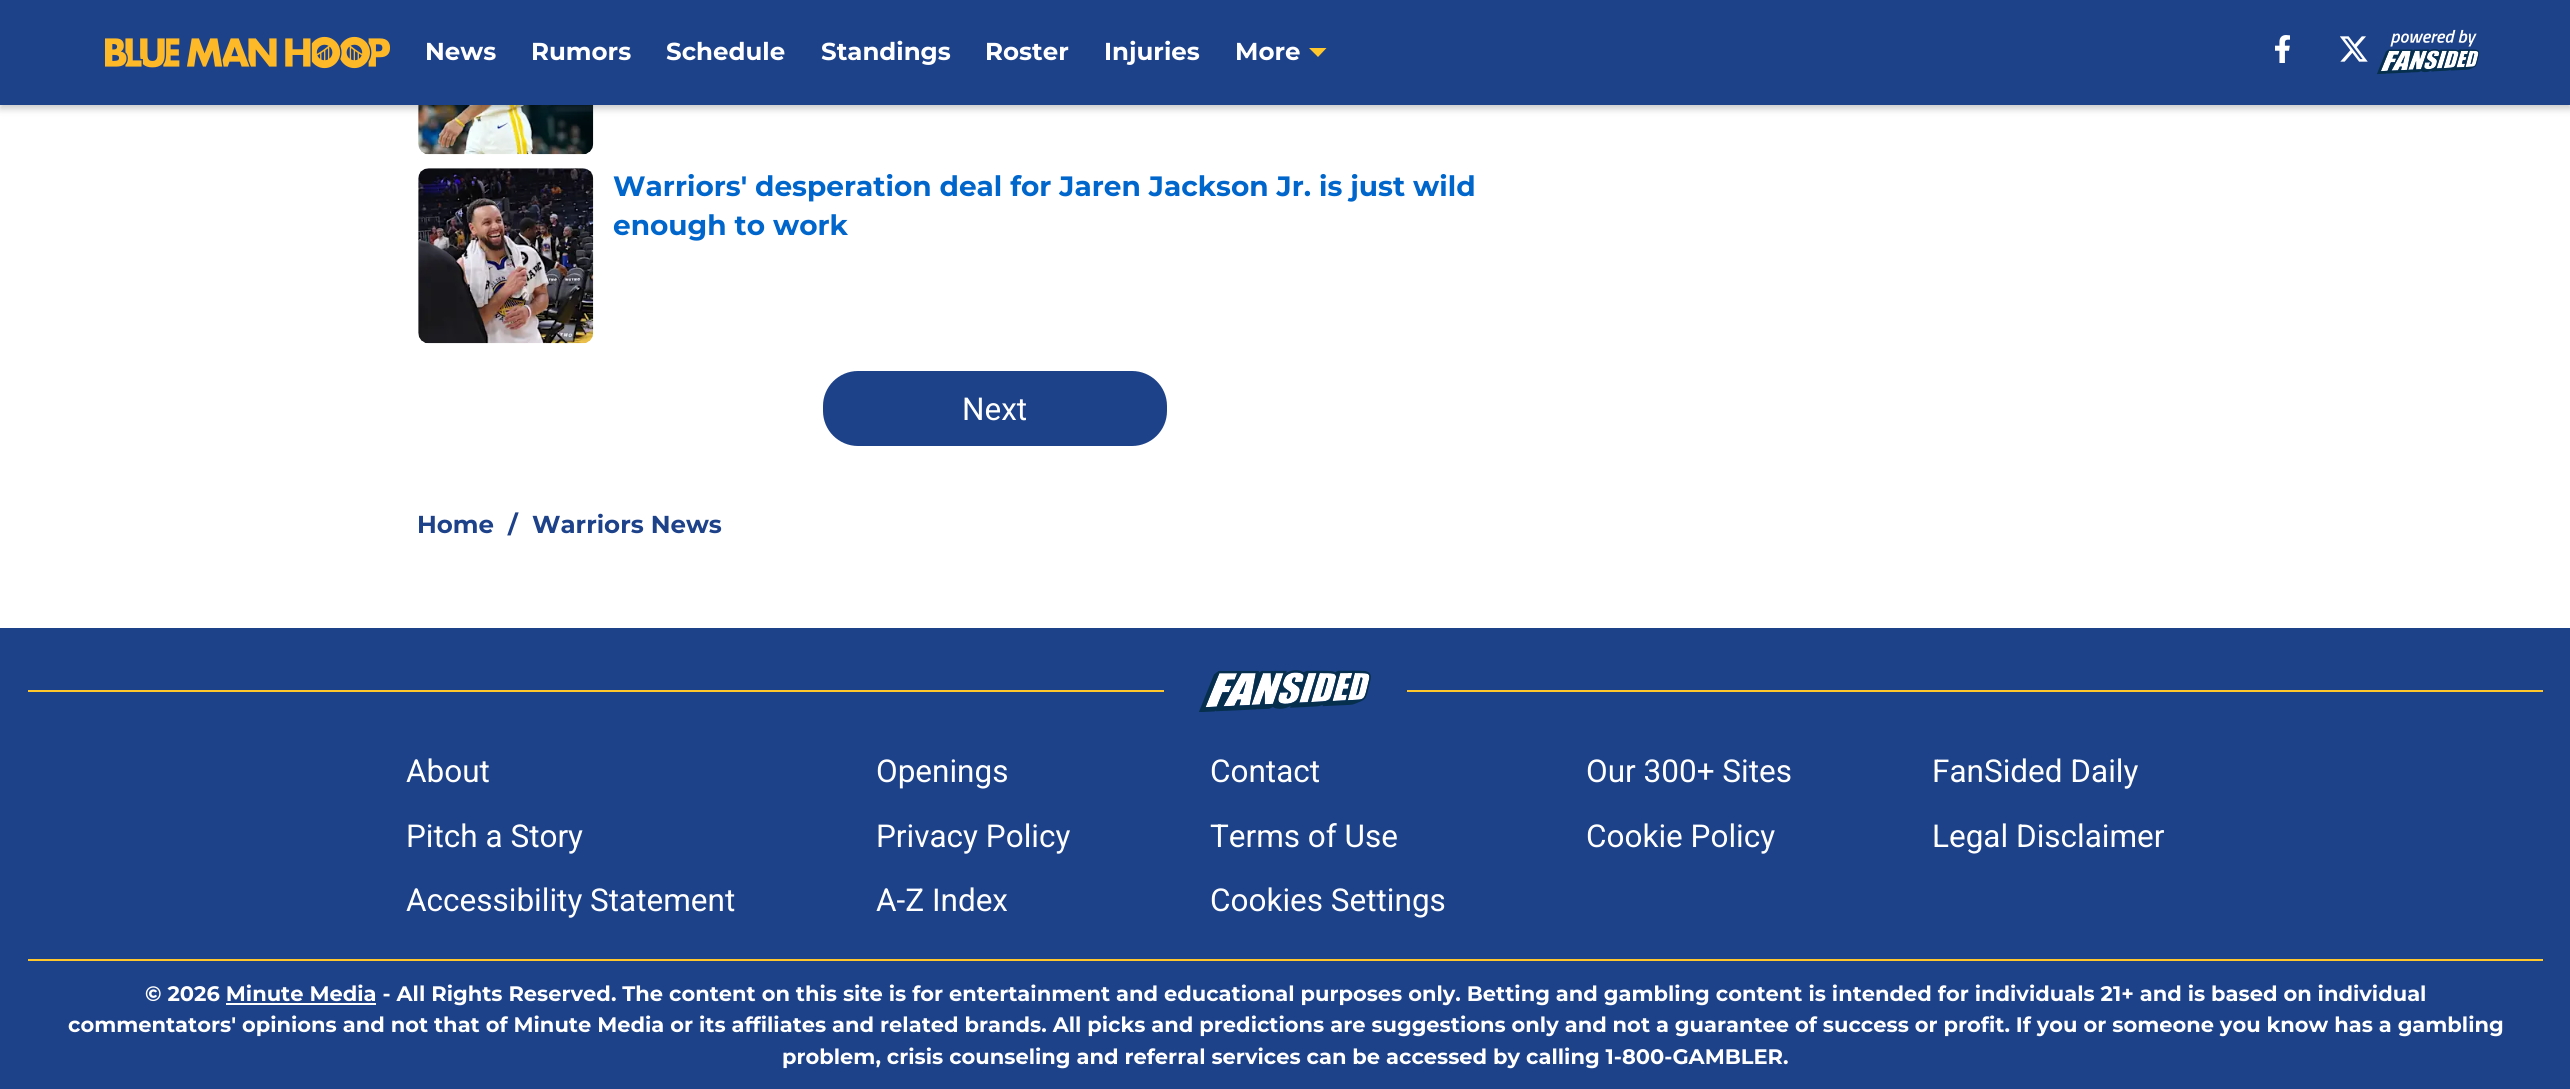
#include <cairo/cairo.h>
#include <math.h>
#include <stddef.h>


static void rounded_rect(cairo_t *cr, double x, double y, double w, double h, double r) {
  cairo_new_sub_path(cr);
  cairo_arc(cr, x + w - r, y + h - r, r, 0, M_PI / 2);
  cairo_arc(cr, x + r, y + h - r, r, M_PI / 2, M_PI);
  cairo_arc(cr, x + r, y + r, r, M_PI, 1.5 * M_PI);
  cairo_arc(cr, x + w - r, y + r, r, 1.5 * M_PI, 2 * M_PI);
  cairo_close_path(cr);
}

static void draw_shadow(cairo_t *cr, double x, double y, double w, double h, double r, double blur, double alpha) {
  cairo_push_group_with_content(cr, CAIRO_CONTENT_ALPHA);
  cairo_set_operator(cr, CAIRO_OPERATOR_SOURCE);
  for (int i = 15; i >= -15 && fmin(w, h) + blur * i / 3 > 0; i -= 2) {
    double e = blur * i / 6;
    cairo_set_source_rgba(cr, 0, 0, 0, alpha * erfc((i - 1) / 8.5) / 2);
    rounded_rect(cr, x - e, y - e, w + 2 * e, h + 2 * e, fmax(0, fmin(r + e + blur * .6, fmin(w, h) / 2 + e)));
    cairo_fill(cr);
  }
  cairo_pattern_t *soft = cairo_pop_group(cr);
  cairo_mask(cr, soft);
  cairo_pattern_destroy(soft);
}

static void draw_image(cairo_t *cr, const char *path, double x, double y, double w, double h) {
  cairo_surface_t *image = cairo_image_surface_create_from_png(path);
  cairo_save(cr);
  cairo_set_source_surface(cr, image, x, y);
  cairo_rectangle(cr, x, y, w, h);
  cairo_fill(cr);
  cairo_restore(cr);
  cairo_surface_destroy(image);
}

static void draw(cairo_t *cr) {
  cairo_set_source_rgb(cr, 1, 1, 1);
  cairo_paint(cr);
  cairo_set_source_rgb(cr, 229 / 255.0, 231 / 255.0, 235 / 255.0);
  rounded_rect(cr, 418, -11, 175, 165, 11);
  cairo_fill(cr);
  draw_image(cr, "images/5.png", 418, 105, 176, 50);
  cairo_set_source_rgb(cr, 0, 0, 0);
  draw_shadow(cr, 0, 4, 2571, 105, 0, 3.5, 0.2);
  cairo_set_source_rgb(cr, 29 / 255.0, 66 / 255.0, 138 / 255.0);
  cairo_rectangle(cr, 0, 0, 2570, 105);
  cairo_fill(cr);
  draw_image(cr, "images/1.png", 105, 36, 285, 33);
  cairo_set_source_rgb(cr, 1, 199 / 255.0, 44 / 255.0);
  cairo_set_fill_rule(cr, CAIRO_FILL_RULE_EVEN_ODD);
  cairo_new_path(cr);
  cairo_move_to(cr, 1309, 48);
  cairo_line_to(cr, 1318, 57);
  cairo_line_to(cr, 1326.5, 48);
  cairo_close_path(cr);
  cairo_fill(cr);
  draw_image(cr, "images/2.png", 2275, 35, 15, 28);
  draw_image(cr, "images/3.png", 2340, 36, 28, 26);
  draw_image(cr, "images/4.png", 2377, 29, 103, 46);
  cairo_set_source_rgb(cr, 229 / 255.0, 231 / 255.0, 235 / 255.0);
  rounded_rect(cr, 418, 168, 175, 175, 11);
  cairo_fill(cr);
  draw_image(cr, "images/6.png", 418, 168, 176, 176);
  cairo_set_source_rgb(cr, 29 / 255.0, 66 / 255.0, 138 / 255.0);
  rounded_rect(cr, 823, 371, 344, 75, 35);
  cairo_fill(cr);
  cairo_rectangle(cr, 0, 628, 2570, 461);
  cairo_fill(cr);
  cairo_set_source_rgb(cr, 1, 199 / 255.0, 44 / 255.0);
  cairo_rectangle(cr, 28, 690, 1136, 2);
  cairo_fill(cr);
  draw_image(cr, "images/7.png", 1199, 670, 172, 42);
  cairo_rectangle(cr, 1407, 690, 1136, 2);
  cairo_fill(cr);
  cairo_rectangle(cr, 28, 959, 2515, 2);
  cairo_fill(cr);
  cairo_set_source_rgb(cr, 1, 1, 1);
  cairo_rectangle(cr, 226, 1003, 150, 2);
  cairo_fill(cr);
  cairo_select_font_face(cr, "Montserrat Thin", CAIRO_FONT_SLANT_NORMAL, CAIRO_FONT_WEIGHT_NORMAL);
  cairo_set_font_size(cr, 24.5);
  cairo_move_to(cr, 425, 60);
  cairo_show_text(cr, "News");
  cairo_move_to(cr, 531, 60);
  cairo_show_text(cr, "Rumors");
  cairo_move_to(cr, 666, 60);
  cairo_show_text(cr, "Schedule");
  cairo_move_to(cr, 821, 60);
  cairo_show_text(cr, "Standings");
  cairo_move_to(cr, 985, 60);
  cairo_show_text(cr, "Roster");
  cairo_move_to(cr, 1104, 60);
  cairo_show_text(cr, "Injuries");
  cairo_move_to(cr, 1235, 60);
  cairo_show_text(cr, "More");
  cairo_set_font_size(cr, 28);
  cairo_set_source_rgb(cr, 0, 102 / 255.0, 204 / 255.0);
  cairo_move_to(cr, 613, 196);
  cairo_show_text(cr, "Warriors' desperation deal for Jaren Jackson Jr. is just wild");
  cairo_move_to(cr, 613, 235);
  cairo_show_text(cr, "enough to work");
  cairo_select_font_face(cr, "Roboto", CAIRO_FONT_SLANT_NORMAL, CAIRO_FONT_WEIGHT_NORMAL);
  cairo_set_font_size(cr, 31.5);
  cairo_set_source_rgb(cr, 1, 1, 1);
  cairo_move_to(cr, 962, 420);
  cairo_show_text(cr, "Next");
  cairo_select_font_face(cr, "Montserrat Thin", CAIRO_FONT_SLANT_NORMAL, CAIRO_FONT_WEIGHT_NORMAL);
  cairo_set_font_size(cr, 24.5);
  cairo_set_source_rgb(cr, 29 / 255.0, 66 / 255.0, 138 / 255.0);
  cairo_move_to(cr, 417, 533);
  cairo_show_text(cr, "Home");
  cairo_move_to(cr, 508, 533);
  cairo_show_text(cr, "/");
  cairo_move_to(cr, 532, 533);
  cairo_show_text(cr, "Warriors News");
  cairo_select_font_face(cr, "Roboto", CAIRO_FONT_SLANT_NORMAL, CAIRO_FONT_WEIGHT_NORMAL);
  cairo_set_font_size(cr, 31.5);
  cairo_set_source_rgb(cr, 1, 1, 1);
  cairo_move_to(cr, 406, 782);
  cairo_show_text(cr, "About");
  cairo_move_to(cr, 876, 782);
  cairo_show_text(cr, "Openings");
  cairo_move_to(cr, 1210, 782);
  cairo_show_text(cr, "Contact");
  cairo_move_to(cr, 1586, 782);
  cairo_show_text(cr, "Our 300+ Sites");
  cairo_move_to(cr, 1932, 782);
  cairo_show_text(cr, "FanSided Daily");
  cairo_move_to(cr, 406, 847);
  cairo_show_text(cr, "Pitch a Story");
  cairo_move_to(cr, 876, 847);
  cairo_show_text(cr, "Privacy Policy");
  cairo_move_to(cr, 1210, 847);
  cairo_show_text(cr, "Terms of Use");
  cairo_move_to(cr, 1586, 847);
  cairo_show_text(cr, "Cookie Policy");
  cairo_move_to(cr, 1932, 847);
  cairo_show_text(cr, "Legal Disclaimer");
  cairo_move_to(cr, 406, 911);
  cairo_show_text(cr, "Accessibility Statement");
  cairo_move_to(cr, 876, 911);
  cairo_show_text(cr, "A-Z Index");
  cairo_move_to(cr, 1210, 911);
  cairo_show_text(cr, "Cookies Settings");
  cairo_select_font_face(cr, "Montserrat Thin", CAIRO_FONT_SLANT_NORMAL, CAIRO_FONT_WEIGHT_NORMAL);
  cairo_set_font_size(cr, 21);
  cairo_move_to(cr, 145, 1001);
  cairo_show_text(cr, "© 2026 Minute Media - All Rights Reserved. The content on this site is for entertainment and educational purposes only. Betting and gambling content is intended for individuals 21+ and is based on individual");
  cairo_move_to(cr, 68, 1032);
  cairo_show_text(cr, "commentators' opinions and not that of Minute Media or its affiliates and related brands. All picks and predictions are suggestions only and not a guarantee of success or profit. If you or someone you know has a gambling");
  cairo_move_to(cr, 782, 1064);
  cairo_show_text(cr, "problem, crisis counseling and referral services can be accessed by calling 1-800-GAMBLER.");
}

int main(void) {
  cairo_surface_t *surface = cairo_image_surface_create(CAIRO_FORMAT_RGB24, 2570, 1089);
  cairo_t *cr = cairo_create(surface);
  cairo_font_options_t *options = cairo_font_options_create();
  cairo_font_options_set_hint_metrics(options, CAIRO_HINT_METRICS_OFF);
  cairo_font_options_set_hint_style(options, CAIRO_HINT_STYLE_NONE);
  cairo_set_font_options(cr, options);
  cairo_set_miter_limit(cr, 4);
  draw(cr);
  cairo_surface_write_to_png(surface, "out.png");
  cairo_font_options_destroy(options);
  cairo_destroy(cr);
  cairo_surface_destroy(surface);
  return 0;
}
